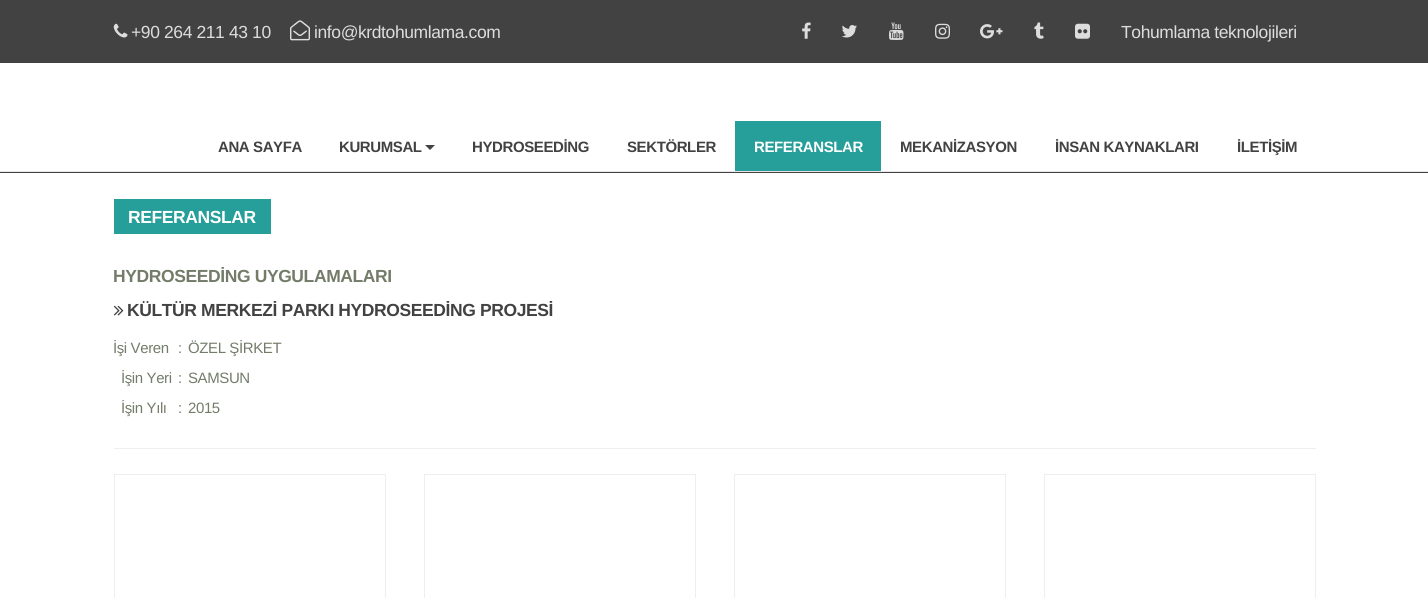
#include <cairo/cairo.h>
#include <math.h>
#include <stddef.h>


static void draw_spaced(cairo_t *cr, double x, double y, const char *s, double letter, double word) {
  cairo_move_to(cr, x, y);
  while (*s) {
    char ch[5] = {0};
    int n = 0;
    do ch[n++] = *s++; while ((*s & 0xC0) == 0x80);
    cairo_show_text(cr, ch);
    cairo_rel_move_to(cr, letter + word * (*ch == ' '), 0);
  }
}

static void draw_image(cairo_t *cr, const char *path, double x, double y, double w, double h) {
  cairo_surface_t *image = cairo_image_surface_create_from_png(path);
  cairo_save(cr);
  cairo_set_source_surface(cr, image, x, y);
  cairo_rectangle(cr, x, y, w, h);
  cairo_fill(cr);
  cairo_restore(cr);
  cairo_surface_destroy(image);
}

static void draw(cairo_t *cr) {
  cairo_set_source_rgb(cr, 67 / 255.0, 66 / 255.0, 66 / 255.0);
  cairo_paint(cr);
  draw_image(cr, "images/1.png", 113, 23, 15, 15);
  draw_image(cr, "images/2.png", 290, 20, 20, 21);
  draw_image(cr, "images/3.png", 802, 22, 9, 17);
  draw_image(cr, "images/4.png", 841, 25, 16, 13);
  draw_image(cr, "images/5.png", 889, 22, 15, 18);
  draw_image(cr, "images/6.png", 935, 23, 15, 16);
  draw_image(cr, "images/7.png", 980, 24, 23, 15);
  draw_image(cr, "images/8.png", 1034, 22, 10, 17);
  draw_image(cr, "images/9.png", 1075, 23, 15, 16);
  cairo_set_source_rgb(cr, 1, 1, 1);
  cairo_rectangle(cr, 0, 63, 1428, 108);
  cairo_fill(cr);
  cairo_set_source_rgb(cr, 231 / 255.0, 231 / 255.0, 231 / 255.0);
  cairo_rectangle(cr, 0, 171, 1428, 1);
  cairo_fill(cr);
  cairo_set_source_rgb(cr, 67 / 255.0, 66 / 255.0, 66 / 255.0);
  cairo_new_path(cr);
  cairo_move_to(cr, 425, 145);
  cairo_line_to(cr, 435, 145);
  cairo_line_to(cr, 430, 150);
  cairo_close_path(cr);
  cairo_fill(cr);
  cairo_set_source_rgb(cr, 38 / 255.0, 158 / 255.0, 153 / 255.0);
  cairo_rectangle(cr, 735, 121, 146, 50);
  cairo_fill(cr);
  cairo_set_source_rgb(cr, 1, 1, 1);
  cairo_rectangle(cr, 0, 173, 1428, 425);
  cairo_fill(cr);
  cairo_set_source_rgb(cr, 38 / 255.0, 158 / 255.0, 153 / 255.0);
  cairo_rectangle(cr, 114, 199, 157, 35);
  cairo_fill(cr);
  draw_image(cr, "images/10.png", 113, 305, 11, 11);
  cairo_set_source_rgb(cr, 238 / 255.0, 238 / 255.0, 238 / 255.0);
  cairo_rectangle(cr, 114, 448, 1202, 1);
  cairo_fill(cr);
  cairo_rectangle(cr, 114.5, 474.5, 271, 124);
  cairo_set_line_width(cr, 1);
  cairo_stroke(cr);
  cairo_rectangle(cr, 424.5, 474.5, 271, 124);
  cairo_stroke(cr);
  cairo_rectangle(cr, 734.5, 474.5, 271, 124);
  cairo_stroke(cr);
  cairo_rectangle(cr, 1044.5, 474.5, 271, 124);
  cairo_stroke(cr);
  cairo_select_font_face(cr, "Liberation Sans", CAIRO_FONT_SLANT_NORMAL, CAIRO_FONT_WEIGHT_NORMAL);
  cairo_set_font_size(cr, 17.5);
  cairo_set_source_rgb(cr, 221 / 255.0, 221 / 255.0, 221 / 255.0);
  draw_spaced(cr, 131, 38, "+90 264 211 43 10", -0.4, 0);
  draw_spaced(cr, 314, 38, "info@krdtohumlama.com", -0.4, 0);
  draw_spaced(cr, 1121, 38, "Tohumlama teknolojileri", -0.4, 0);
  cairo_select_font_face(cr, "Liberation Sans", CAIRO_FONT_SLANT_NORMAL, CAIRO_FONT_WEIGHT_BOLD);
  cairo_set_font_size(cr, 15);
  cairo_set_source_rgb(cr, 67 / 255.0, 66 / 255.0, 66 / 255.0);
  draw_spaced(cr, 218, 152, "ANA SAYFA", -0.4, 0);
  draw_spaced(cr, 339, 152, "KURUMSAL", -0.4, 0);
  draw_spaced(cr, 472, 152, "HYDROSEEDİNG", -0.4, 0);
  draw_spaced(cr, 627, 152, "SEKTÖRLER", -0.4, 0);
  cairo_set_source_rgb(cr, 1, 1, 1);
  draw_spaced(cr, 754, 152, "REFERANSLAR", -0.4, 0);
  cairo_set_source_rgb(cr, 67 / 255.0, 66 / 255.0, 66 / 255.0);
  draw_spaced(cr, 900, 152, "MEKANİZASYON", -0.4, 0);
  draw_spaced(cr, 1055, 152, "İNSAN KAYNAKLARI", -0.4, 0);
  draw_spaced(cr, 1237, 152, "İLETİŞİM", -0.4, 0);
  cairo_set_font_size(cr, 17.5);
  cairo_set_source_rgb(cr, 1, 1, 1);
  draw_spaced(cr, 128, 223, "REFERANSLAR", -0.4, 0);
  cairo_set_source_rgb(cr, 115 / 255.0, 124 / 255.0, 105 / 255.0);
  draw_spaced(cr, 113, 282, "HYDROSEEDİNG UYGULAMALARI", -0.4, 0);
  cairo_set_source_rgb(cr, 67 / 255.0, 66 / 255.0, 66 / 255.0);
  draw_spaced(cr, 127, 316, "KÜLTÜR MERKEZİ PARKI HYDROSEEDİNG PROJESİ", -0.4, 0);
  cairo_select_font_face(cr, "Liberation Sans", CAIRO_FONT_SLANT_NORMAL, CAIRO_FONT_WEIGHT_NORMAL);
  cairo_set_font_size(cr, 15);
  cairo_set_source_rgb(cr, 115 / 255.0, 124 / 255.0, 105 / 255.0);
  draw_spaced(cr, 113, 353, "İşi Veren", -0.4, 0);
  draw_spaced(cr, 178, 353, ":", -0.4, 0);
  draw_spaced(cr, 188, 353, "ÖZEL ŞİRKET", -0.4, 0);
  draw_spaced(cr, 121, 383, "İşin Yeri", -0.4, 0);
  draw_spaced(cr, 178, 383, ":", -0.4, 0);
  draw_spaced(cr, 188, 383, "SAMSUN", -0.4, 0);
  draw_spaced(cr, 121, 413, "İşin Yılı", -0.4, 0);
  draw_spaced(cr, 178, 413, ":", -0.4, 0);
  draw_spaced(cr, 188, 413, "2015", -0.4, 0);
}

int main(void) {
  cairo_surface_t *surface = cairo_image_surface_create(CAIRO_FORMAT_RGB24, 1428, 598);
  cairo_t *cr = cairo_create(surface);
  cairo_font_options_t *options = cairo_font_options_create();
  cairo_font_options_set_hint_metrics(options, CAIRO_HINT_METRICS_OFF);
  cairo_font_options_set_hint_style(options, CAIRO_HINT_STYLE_NONE);
  cairo_set_font_options(cr, options);
  cairo_set_miter_limit(cr, 4);
  draw(cr);
  cairo_surface_write_to_png(surface, "out.png");
  cairo_font_options_destroy(options);
  cairo_destroy(cr);
  cairo_surface_destroy(surface);
  return 0;
}
